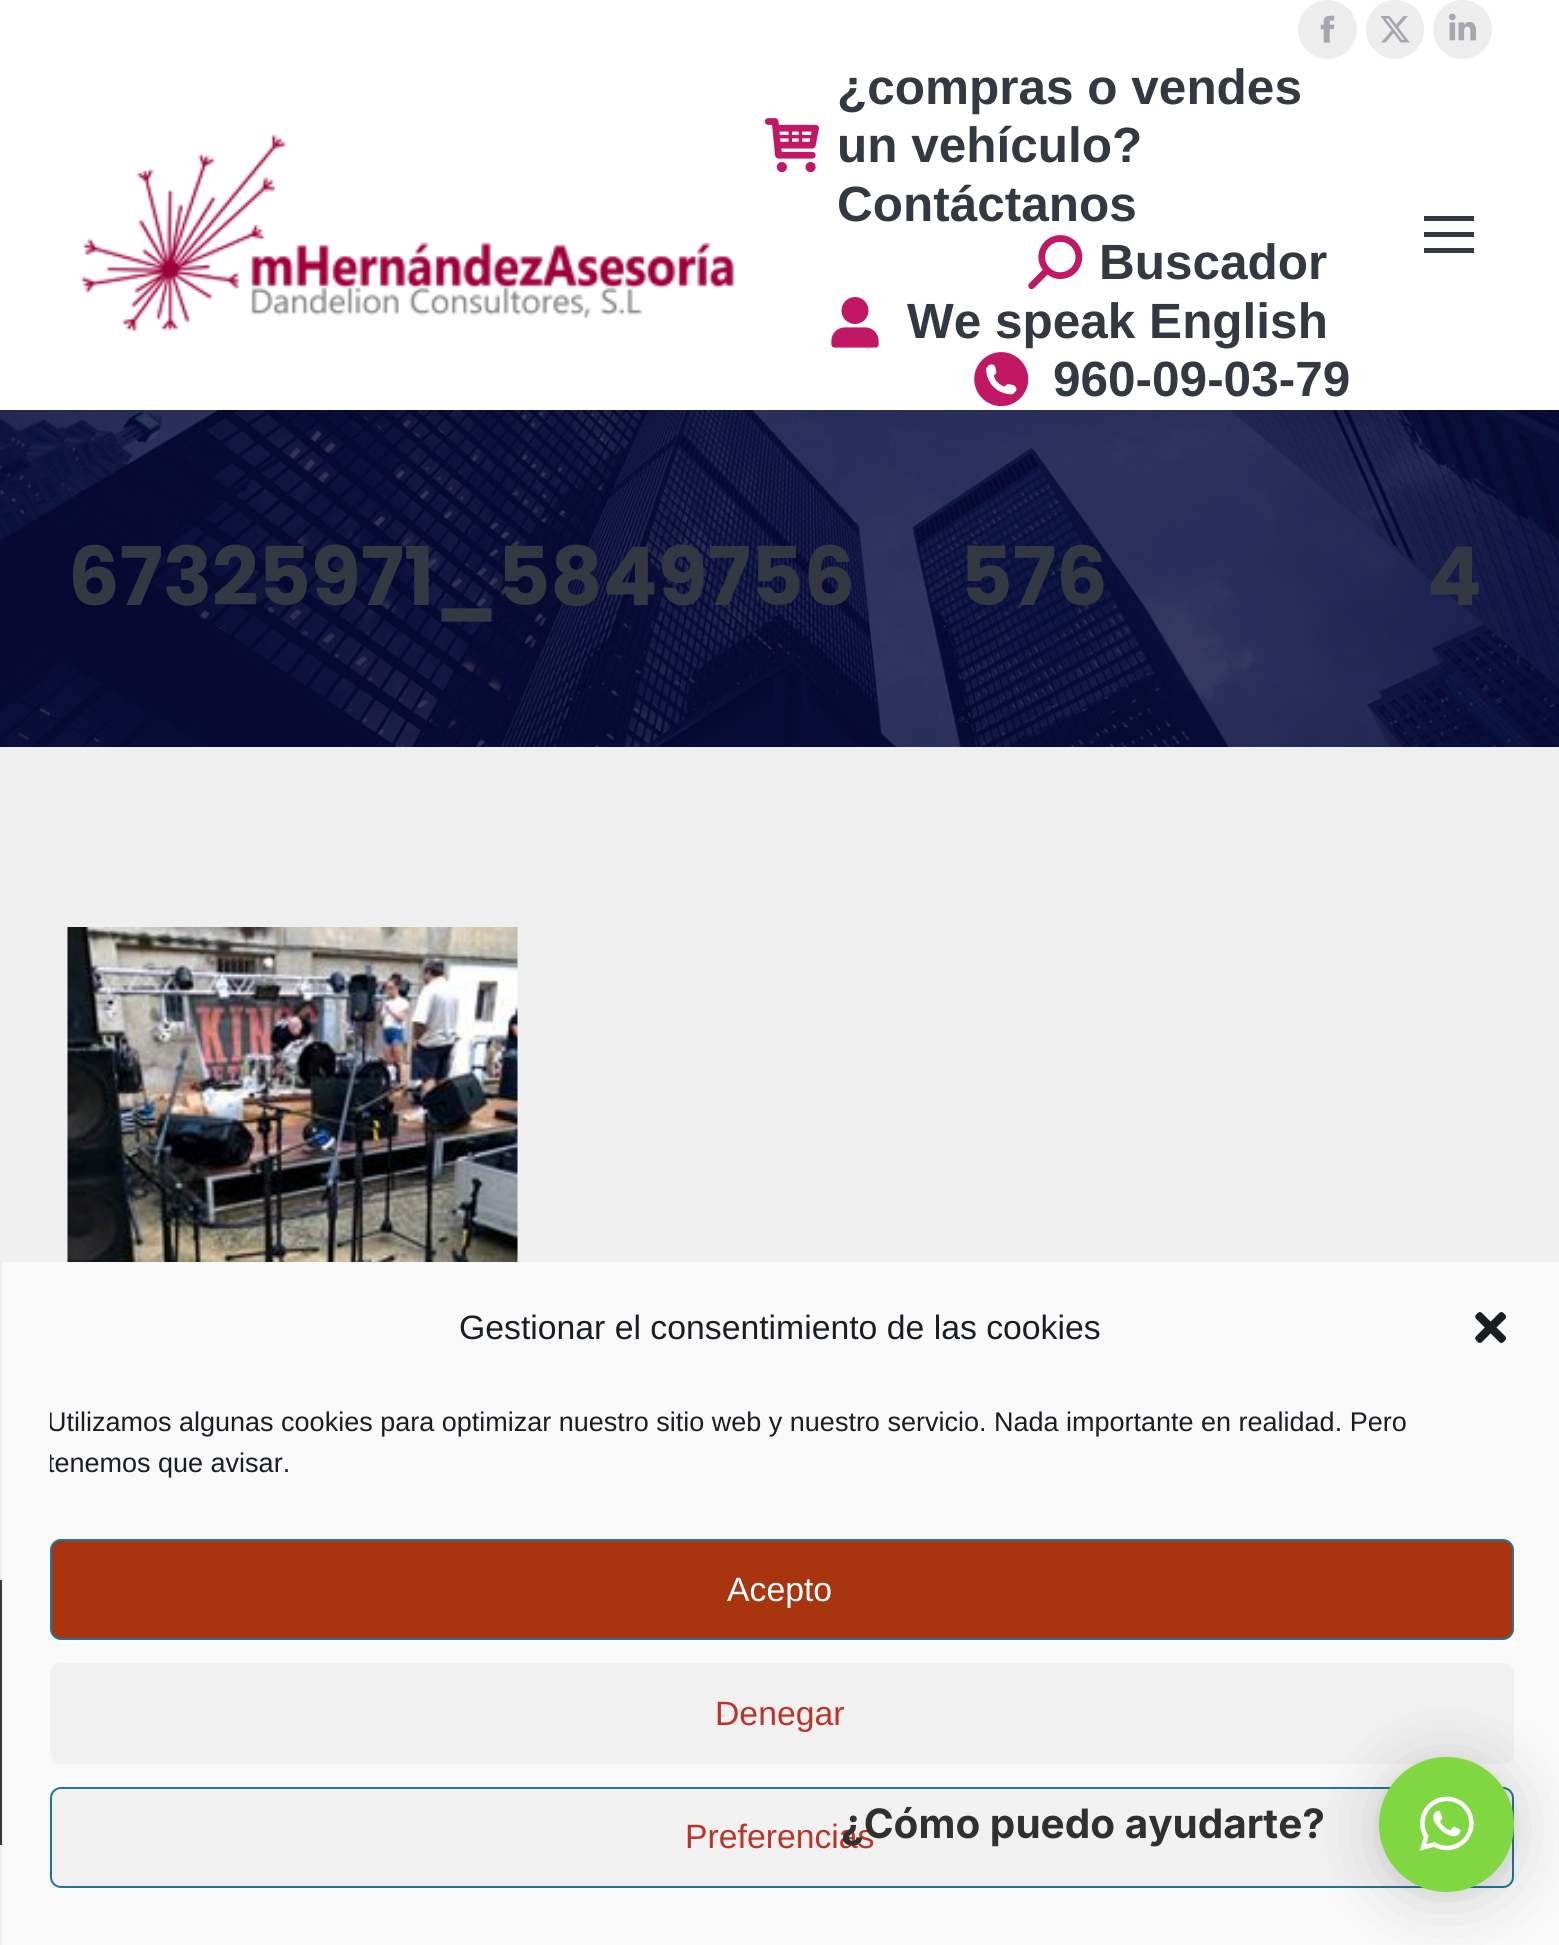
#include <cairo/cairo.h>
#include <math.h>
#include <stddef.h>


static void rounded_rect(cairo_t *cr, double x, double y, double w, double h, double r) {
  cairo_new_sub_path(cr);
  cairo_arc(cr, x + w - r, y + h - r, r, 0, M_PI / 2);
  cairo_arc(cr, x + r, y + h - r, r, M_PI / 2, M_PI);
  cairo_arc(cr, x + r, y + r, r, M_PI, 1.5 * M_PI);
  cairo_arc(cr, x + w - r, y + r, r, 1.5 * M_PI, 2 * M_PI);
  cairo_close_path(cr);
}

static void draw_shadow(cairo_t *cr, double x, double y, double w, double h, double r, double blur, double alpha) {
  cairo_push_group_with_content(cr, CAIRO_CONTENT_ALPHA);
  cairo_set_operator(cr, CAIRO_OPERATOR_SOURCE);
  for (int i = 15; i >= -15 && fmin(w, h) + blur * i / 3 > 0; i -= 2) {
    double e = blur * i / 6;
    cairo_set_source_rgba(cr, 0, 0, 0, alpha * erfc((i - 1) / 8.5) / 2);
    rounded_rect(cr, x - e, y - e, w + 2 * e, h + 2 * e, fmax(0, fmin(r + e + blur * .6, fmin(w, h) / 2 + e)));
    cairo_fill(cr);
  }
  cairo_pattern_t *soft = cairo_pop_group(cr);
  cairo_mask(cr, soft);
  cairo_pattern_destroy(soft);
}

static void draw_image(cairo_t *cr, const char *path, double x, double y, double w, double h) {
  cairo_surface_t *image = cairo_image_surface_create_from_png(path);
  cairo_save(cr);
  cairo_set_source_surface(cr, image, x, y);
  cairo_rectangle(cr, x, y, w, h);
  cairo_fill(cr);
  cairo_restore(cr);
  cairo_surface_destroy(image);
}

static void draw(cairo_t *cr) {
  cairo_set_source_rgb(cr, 239 / 255.0, 239 / 255.0, 240 / 255.0);
  cairo_paint(cr);
  draw_image(cr, "images/9.png", 0, 410, 1559, 337);
  cairo_set_source_rgb(cr, 0, 0, 0);
  draw_shadow(cr, -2, -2, 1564, 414, 0, 17, 0.07);
  cairo_set_source_rgb(cr, 1, 1, 1);
  cairo_rectangle(cr, 0, 0, 1559, 410);
  cairo_fill(cr);
  cairo_set_source_rgb(cr, 237 / 255.0, 237 / 255.0, 238 / 255.0);
  cairo_arc(cr, 1327.5, 29.5, 29.5, 0, 2 * M_PI);
  cairo_fill(cr);
  draw_image(cr, "images/1.png", 1320, 15, 15, 28);
  rounded_rect(cr, 1366, 0, 58, 59, 29);
  cairo_fill(cr);
  draw_image(cr, "images/2.png", 1380, 16, 30, 27);
  cairo_arc(cr, 1462.5, 29.5, 29.5, 0, 2 * M_PI);
  cairo_fill(cr);
  draw_image(cr, "images/3.png", 1449, 13, 27, 28);
  draw_image(cr, "images/4.png", 80, 134, 655, 198);
  draw_image(cr, "images/5.png", 765, 118, 54, 55);
  draw_image(cr, "images/6.png", 1028, 235, 55, 55);
  draw_image(cr, "images/7.png", 831, 297, 48, 51);
  draw_image(cr, "images/8.png", 974, 352, 55, 55);
  cairo_set_source_rgb(cr, 51 / 255.0, 56 / 255.0, 67 / 255.0);
  cairo_rectangle(cr, 1424, 216, 50, 5);
  cairo_fill(cr);
  cairo_rectangle(cr, 1424, 232, 50, 5);
  cairo_fill(cr);
  cairo_rectangle(cr, 1424, 248, 50, 5);
  cairo_fill(cr);
  draw_image(cr, "images/10.png", 67, 927, 451, 335);
  cairo_rectangle(cr, 0, 1580, 2, 265);
  cairo_fill(cr);
  cairo_set_source_rgb(cr, 249 / 255.0, 249 / 255.0, 249 / 255.0);
  cairo_rectangle(cr, 2, 1262, 1557, 683);
  cairo_fill(cr);
  draw_image(cr, "images/11.png", 1475, 1312, 32, 31);
  cairo_set_source_rgb(cr, 168 / 255.0, 52 / 255.0, 16 / 255.0);
  rounded_rect(cr, 51, 1540, 1462, 99, 10);
  cairo_fill_preserve(cr);
  cairo_set_source_rgb(cr, 33 / 255.0, 117 / 255.0, 155 / 255.0);
  cairo_stroke(cr);
  cairo_set_source_rgb(cr, 241 / 255.0, 241 / 255.0, 241 / 255.0);
  rounded_rect(cr, 50, 1663, 1464, 101, 11);
  cairo_fill(cr);
  rounded_rect(cr, 51, 1788, 1462, 99, 10);
  cairo_fill_preserve(cr);
  cairo_set_source_rgb(cr, 33 / 255.0, 117 / 255.0, 155 / 255.0);
  cairo_stroke(cr);
  cairo_set_source_rgb(cr, 0, 0, 0);
  draw_shadow(cr, 1379, 1762, 135, 135, 67.5, 36, 0.16);
  draw_shadow(cr, 1379, 1760, 135, 135, 67.5, 7, 0.06);
  cairo_set_source_rgb(cr, 129 / 255.0, 215 / 255.0, 66 / 255.0);
  cairo_arc(cr, 1446.5, 1824.5, 67.5, 0, 2 * M_PI);
  cairo_fill(cr);
  draw_image(cr, "images/12.png", 1420, 1796, 54, 55);
  cairo_select_font_face(cr, "Liberation Sans", CAIRO_FONT_SLANT_NORMAL, CAIRO_FONT_WEIGHT_BOLD);
  cairo_set_font_size(cr, 49.5);
  cairo_set_source_rgb(cr, 51 / 255.0, 56 / 255.0, 67 / 255.0);
  cairo_move_to(cr, 837, 104);
  cairo_show_text(cr, "¿compras o vendes");
  cairo_move_to(cr, 837, 162);
  cairo_show_text(cr, "un vehículo?");
  cairo_move_to(cr, 837, 221);
  cairo_show_text(cr, "Contáctanos");
  cairo_move_to(cr, 1099, 279);
  cairo_show_text(cr, "Buscador");
  cairo_move_to(cr, 907, 338);
  cairo_show_text(cr, "We speak English");
  cairo_move_to(cr, 1053, 396);
  cairo_show_text(cr, "960-09-03-79");
  cairo_select_font_face(cr, "Poppins", CAIRO_FONT_SLANT_NORMAL, CAIRO_FONT_WEIGHT_BOLD);
  cairo_set_font_size(cr, 81);
  cairo_move_to(cr, 68, 605);
  cairo_show_text(cr, "67325971_5849756");
  cairo_move_to(cr, 960, 605);
  cairo_show_text(cr, "576");
  cairo_move_to(cr, 1427, 605);
  cairo_show_text(cr, "4");
  cairo_select_font_face(cr, "Liberation Sans", CAIRO_FONT_SLANT_NORMAL, CAIRO_FONT_WEIGHT_NORMAL);
  cairo_set_font_size(cr, 33.75);
  cairo_set_source_rgb(cr, 25 / 255.0, 30 / 255.0, 35 / 255.0);
  cairo_move_to(cr, 459, 1339);
  cairo_show_text(cr, "Gestionar el consentimiento de las cookies");
  cairo_save(cr);
  cairo_rectangle(cr, 50, 1402, 1464, 92);
  cairo_clip(cr);
  cairo_set_font_size(cr, 27);
  cairo_move_to(cr, 47, 1431);
  cairo_show_text(cr, "Utilizamos algunas cookies para optimizar nuestro sitio web y nuestro servicio. Nada importante en realidad. Pero");
  cairo_move_to(cr, 47, 1472);
  cairo_show_text(cr, "tenemos que avisar.");
  cairo_restore(cr);
  cairo_set_source_rgb(cr, 1, 1, 1);
  cairo_move_to(cr, 727, 1601);
  cairo_show_text(cr, "Acepto");
  cairo_set_source_rgb(cr, 188 / 255.0, 52 / 255.0, 39 / 255.0);
  cairo_move_to(cr, 715, 1725);
  cairo_show_text(cr, "Denegar");
  cairo_move_to(cr, 685, 1848);
  cairo_show_text(cr, "Preferencias");
  cairo_select_font_face(cr, "Inter", CAIRO_FONT_SLANT_NORMAL, CAIRO_FONT_WEIGHT_BOLD);
  cairo_set_font_size(cr, 40.5);
  cairo_set_source_rgb(cr, 48 / 255.0, 48 / 255.0, 48 / 255.0);
  cairo_move_to(cr, 841, 1838);
  cairo_show_text(cr, "¿Cómo puedo ayudarte?");
}

int main(void) {
  cairo_surface_t *surface = cairo_image_surface_create(CAIRO_FORMAT_RGB24, 1559, 1945);
  cairo_t *cr = cairo_create(surface);
  cairo_font_options_t *options = cairo_font_options_create();
  cairo_font_options_set_hint_metrics(options, CAIRO_HINT_METRICS_OFF);
  cairo_font_options_set_hint_style(options, CAIRO_HINT_STYLE_NONE);
  cairo_set_font_options(cr, options);
  cairo_set_miter_limit(cr, 4);
  draw(cr);
  cairo_surface_write_to_png(surface, "out.png");
  cairo_font_options_destroy(options);
  cairo_destroy(cr);
  cairo_surface_destroy(surface);
  return 0;
}
